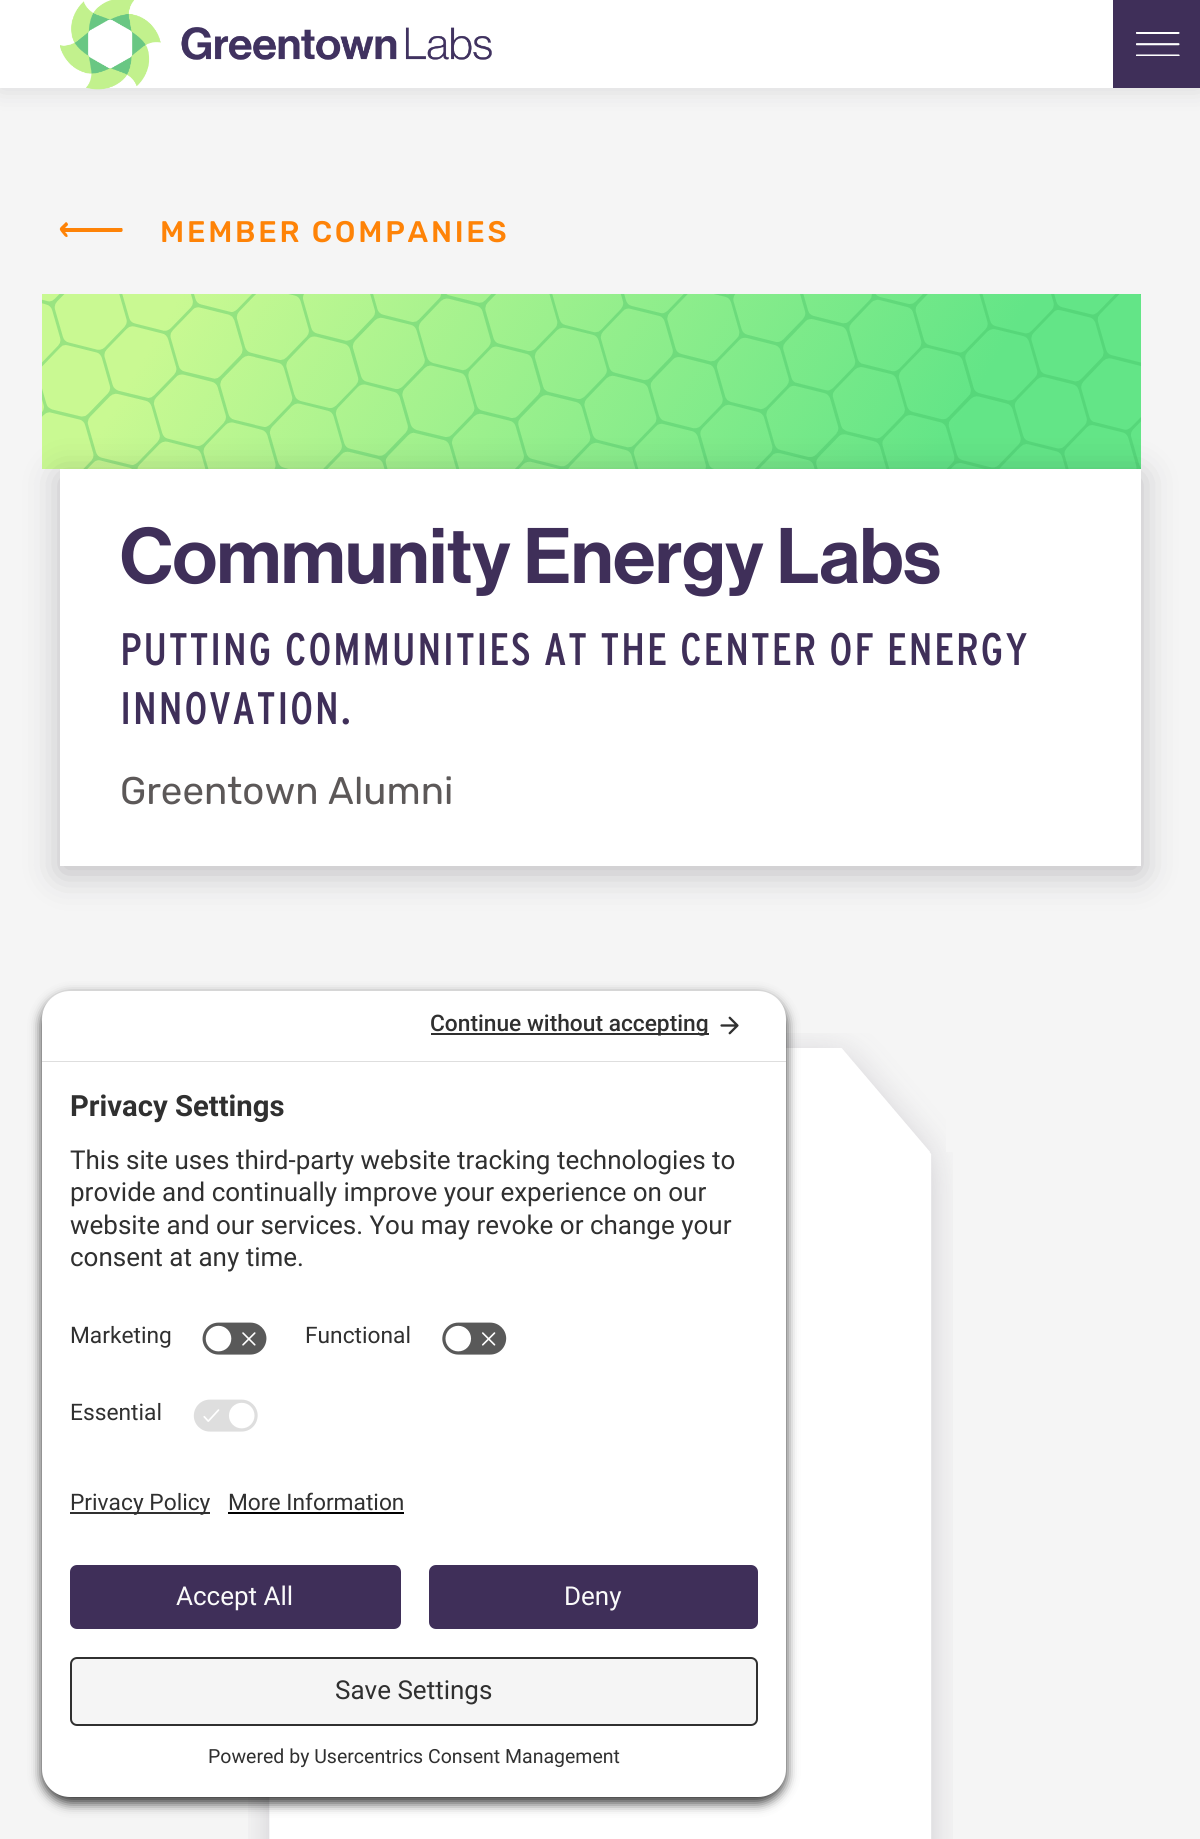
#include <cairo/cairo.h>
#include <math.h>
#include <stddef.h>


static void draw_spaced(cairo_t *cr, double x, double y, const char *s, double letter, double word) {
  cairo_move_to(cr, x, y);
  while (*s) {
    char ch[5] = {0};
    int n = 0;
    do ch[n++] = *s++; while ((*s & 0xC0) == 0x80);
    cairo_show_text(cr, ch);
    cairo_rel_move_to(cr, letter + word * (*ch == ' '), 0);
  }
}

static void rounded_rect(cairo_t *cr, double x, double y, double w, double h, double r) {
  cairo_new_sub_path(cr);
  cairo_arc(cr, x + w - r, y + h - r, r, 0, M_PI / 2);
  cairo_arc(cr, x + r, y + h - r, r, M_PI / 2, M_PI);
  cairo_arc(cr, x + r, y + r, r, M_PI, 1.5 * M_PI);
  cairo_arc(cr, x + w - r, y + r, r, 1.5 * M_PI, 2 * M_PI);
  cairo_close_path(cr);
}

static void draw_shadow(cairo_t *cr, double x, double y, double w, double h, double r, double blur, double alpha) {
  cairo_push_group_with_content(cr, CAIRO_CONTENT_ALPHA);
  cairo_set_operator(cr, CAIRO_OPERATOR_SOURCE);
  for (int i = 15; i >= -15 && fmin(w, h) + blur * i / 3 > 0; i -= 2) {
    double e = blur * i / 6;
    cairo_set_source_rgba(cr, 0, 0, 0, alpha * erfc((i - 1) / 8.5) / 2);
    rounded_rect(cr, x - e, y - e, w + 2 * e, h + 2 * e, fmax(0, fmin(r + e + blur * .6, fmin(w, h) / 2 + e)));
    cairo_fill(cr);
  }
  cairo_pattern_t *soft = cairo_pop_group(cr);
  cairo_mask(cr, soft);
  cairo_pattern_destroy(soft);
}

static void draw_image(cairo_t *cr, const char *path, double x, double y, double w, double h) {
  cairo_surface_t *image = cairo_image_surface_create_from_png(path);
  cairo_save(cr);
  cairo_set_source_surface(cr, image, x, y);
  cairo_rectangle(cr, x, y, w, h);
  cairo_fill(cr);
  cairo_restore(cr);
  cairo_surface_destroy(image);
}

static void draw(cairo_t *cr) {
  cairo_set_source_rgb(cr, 245 / 255.0, 245 / 255.0, 245 / 255.0);
  cairo_paint(cr);
  cairo_set_source_rgb(cr, 23 / 255.0, 19 / 255.0, 30 / 255.0);
  draw_shadow(cr, 0, 2, 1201, 87, 0, 12, 0.13);
  cairo_set_source_rgb(cr, 1, 1, 1);
  cairo_rectangle(cr, 0, 0, 1113, 88);
  cairo_fill(cr);
  draw_image(cr, "images/1.png", 60, 0, 432, 90);
  cairo_set_source_rgb(cr, 63 / 255.0, 47 / 255.0, 89 / 255.0);
  cairo_rectangle(cr, 1113, 0, 87, 88);
  cairo_fill(cr);
  draw_image(cr, "images/2.png", 1136, 32, 44, 24);
  cairo_set_source_rgb(cr, 254 / 255.0, 131 / 255.0, 7 / 255.0);
  cairo_new_path(cr);
  cairo_move_to(cr, 65, 223);
  cairo_curve_to(cr, 66, 221, 68, 223, 68, 225);
  cairo_line_to(cr, 65, 228);
  cairo_line_to(cr, 122, 228);
  cairo_curve_to(cr, 123, 229, 123, 232, 121, 232);
  cairo_line_to(cr, 65, 232);
  cairo_curve_to(cr, 70, 236, 67, 240, 63, 234);
  cairo_curve_to(cr, 58, 228, 59, 229, 65, 223);
  cairo_close_path(cr);
  cairo_fill(cr);
  draw_image(cr, "images/3.png", 42, 294, 1099, 175);
  cairo_set_source_rgb(cr, 23 / 255.0, 19 / 255.0, 30 / 255.0);
  draw_shadow(cr, 60, 476, 1081, 397, 0, 17.5, 0.25);
  cairo_set_source_rgb(cr, 1, 1, 1);
  cairo_rectangle(cr, 60, 469, 1081, 397);
  cairo_fill(cr);
  draw_image(cr, "images/4.png", 786, 1033, 160, 119);
  draw_image(cr, "images/5.png", 248, 1152, 705, 687);
  cairo_set_source_rgb(cr, 0, 0, 0);
  draw_shadow(cr, 42, 996, 744, 807, 28, 6, 0.8);
  cairo_set_source_rgb(cr, 1, 1, 1);
  cairo_new_path(cr);
  cairo_move_to(cr, 70, 991);
  cairo_line_to(cr, 758, 991);
  cairo_curve_to(cr, 773.5, 991, 786, 1003.5, 786, 1019);
  cairo_line_to(cr, 786, 1062);
  cairo_line_to(cr, 42, 1062);
  cairo_line_to(cr, 42, 1019);
  cairo_curve_to(cr, 42, 1003.5, 54.5, 991, 70, 991);
  cairo_close_path(cr);
  cairo_fill(cr);
  cairo_set_source_rgb(cr, 222 / 255.0, 222 / 255.0, 222 / 255.0);
  cairo_rectangle(cr, 42, 1061, 744, 1);
  cairo_fill(cr);
  cairo_set_source_rgb(cr, 48 / 255.0, 48 / 255.0, 48 / 255.0);
  cairo_rectangle(cr, 431, 1033, 278, 2);
  cairo_fill(cr);
  draw_image(cr, "images/6.png", 720, 1016, 19, 19);
  cairo_set_source_rgb(cr, 1, 1, 1);
  cairo_rectangle(cr, 42, 1062, 744, 401);
  cairo_fill(cr);
  draw_image(cr, "images/7.png", 202, 1322, 65, 33);
  draw_image(cr, "images/8.png", 442, 1322, 65, 33);
  draw_image(cr, "images/9.png", 193, 1399, 65, 33);
  cairo_new_path(cr);
  cairo_move_to(cr, 42, 1463);
  cairo_line_to(cr, 786, 1463);
  cairo_line_to(cr, 786, 1769);
  cairo_curve_to(cr, 786, 1784.5, 773.5, 1797, 758, 1797);
  cairo_line_to(cr, 70, 1797);
  cairo_curve_to(cr, 54.5, 1797, 42, 1784.5, 42, 1769);
  cairo_close_path(cr);
  cairo_fill(cr);
  cairo_set_source_rgb(cr, 48 / 255.0, 48 / 255.0, 48 / 255.0);
  cairo_rectangle(cr, 70, 1512, 140, 2);
  cairo_fill(cr);
  cairo_set_source_rgb(cr, 0, 0, 0);
  cairo_rectangle(cr, 228, 1512, 176, 2);
  cairo_fill(cr);
  cairo_set_source_rgb(cr, 63 / 255.0, 47 / 255.0, 89 / 255.0);
  rounded_rect(cr, 70, 1565, 331, 64, 7);
  cairo_fill(cr);
  rounded_rect(cr, 429, 1565, 329, 64, 7);
  cairo_fill(cr);
  cairo_set_source_rgb(cr, 245 / 255.0, 245 / 255.0, 245 / 255.0);
  rounded_rect(cr, 71, 1658, 686, 67, 6);
  cairo_fill_preserve(cr);
  cairo_set_source_rgb(cr, 48 / 255.0, 48 / 255.0, 48 / 255.0);
  cairo_stroke(cr);
  cairo_select_font_face(cr, "Rubik Medium", CAIRO_FONT_SLANT_NORMAL, CAIRO_FONT_WEIGHT_NORMAL);
  cairo_set_font_size(cr, 29.75);
  cairo_set_source_rgb(cr, 254 / 255.0, 131 / 255.0, 7 / 255.0);
  draw_spaced(cr, 160, 242, "MEMBER COMPANIES", 2.75, 0);
  cairo_select_font_face(cr, "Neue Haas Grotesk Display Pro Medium", CAIRO_FONT_SLANT_NORMAL, CAIRO_FONT_WEIGHT_NORMAL);
  cairo_set_font_size(cr, 77);
  cairo_set_source_rgb(cr, 63 / 255.0, 47 / 255.0, 89 / 255.0);
  cairo_move_to(cr, 120, 583);
  cairo_show_text(cr, "Community Energy Labs");
  cairo_select_font_face(cr, "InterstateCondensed", CAIRO_FONT_SLANT_NORMAL, CAIRO_FONT_WEIGHT_NORMAL);
  cairo_set_font_size(cr, 45.5);
  draw_spaced(cr, 120, 665, "PUTTING COMMUNITIES AT THE CENTER OF ENERGY", 1.5, 0);
  draw_spaced(cr, 120, 724, "INNOVATION.", 1.5, 0);
  cairo_select_font_face(cr, "Rubik", CAIRO_FONT_SLANT_NORMAL, CAIRO_FONT_WEIGHT_NORMAL);
  cairo_set_font_size(cr, 38.5);
  cairo_set_source_rgb(cr, 92 / 255.0, 88 / 255.0, 88 / 255.0);
  cairo_move_to(cr, 120, 804);
  cairo_show_text(cr, "Greentown Alumni");
  cairo_select_font_face(cr, "Roboto Medium", CAIRO_FONT_SLANT_NORMAL, CAIRO_FONT_WEIGHT_NORMAL);
  cairo_set_font_size(cr, 22.75);
  cairo_set_source_rgb(cr, 48 / 255.0, 48 / 255.0, 48 / 255.0);
  cairo_move_to(cr, 430, 1031);
  cairo_show_text(cr, "Continue without accepting");
  cairo_select_font_face(cr, "Roboto", CAIRO_FONT_SLANT_NORMAL, CAIRO_FONT_WEIGHT_BOLD);
  cairo_set_font_size(cr, 29.25);
  cairo_move_to(cr, 70, 1116);
  cairo_show_text(cr, "Privacy Settings");
  cairo_select_font_face(cr, "Roboto", CAIRO_FONT_SLANT_NORMAL, CAIRO_FONT_WEIGHT_NORMAL);
  cairo_set_font_size(cr, 26);
  cairo_move_to(cr, 70, 1169);
  cairo_show_text(cr, "This site uses third-party website tracking technologies to");
  cairo_move_to(cr, 70, 1201);
  cairo_show_text(cr, "provide and continually improve your experience on our");
  cairo_move_to(cr, 70, 1234);
  cairo_show_text(cr, "website and our services. You may revoke or change your");
  cairo_move_to(cr, 70, 1266);
  cairo_show_text(cr, "consent at any time.");
  cairo_set_font_size(cr, 22.75);
  cairo_move_to(cr, 70, 1343);
  cairo_show_text(cr, "Marketing");
  cairo_move_to(cr, 305, 1343);
  cairo_show_text(cr, "Functional");
  cairo_move_to(cr, 70, 1420);
  cairo_show_text(cr, "Essential");
  cairo_move_to(cr, 70, 1510);
  cairo_show_text(cr, "Privacy Policy");
  cairo_move_to(cr, 228, 1510);
  cairo_show_text(cr, "More Information");
  cairo_set_font_size(cr, 26);
  cairo_set_source_rgb(cr, 250 / 255.0, 250 / 255.0, 250 / 255.0);
  cairo_move_to(cr, 176, 1605);
  cairo_show_text(cr, "Accept All");
  cairo_move_to(cr, 564, 1605);
  cairo_show_text(cr, "Deny");
  cairo_set_source_rgb(cr, 48 / 255.0, 48 / 255.0, 48 / 255.0);
  cairo_move_to(cr, 335, 1699);
  cairo_show_text(cr, "Save Settings");
  cairo_set_font_size(cr, 19.5);
  cairo_move_to(cr, 208, 1763);
  cairo_show_text(cr, "Powered by Usercentrics Consent Management");
}

int main(void) {
  cairo_surface_t *surface = cairo_image_surface_create(CAIRO_FORMAT_RGB24, 1200, 1839);
  cairo_t *cr = cairo_create(surface);
  cairo_font_options_t *options = cairo_font_options_create();
  cairo_font_options_set_hint_metrics(options, CAIRO_HINT_METRICS_OFF);
  cairo_font_options_set_hint_style(options, CAIRO_HINT_STYLE_NONE);
  cairo_set_font_options(cr, options);
  cairo_set_miter_limit(cr, 4);
  draw(cr);
  cairo_surface_write_to_png(surface, "out.png");
  cairo_font_options_destroy(options);
  cairo_destroy(cr);
  cairo_surface_destroy(surface);
  return 0;
}
